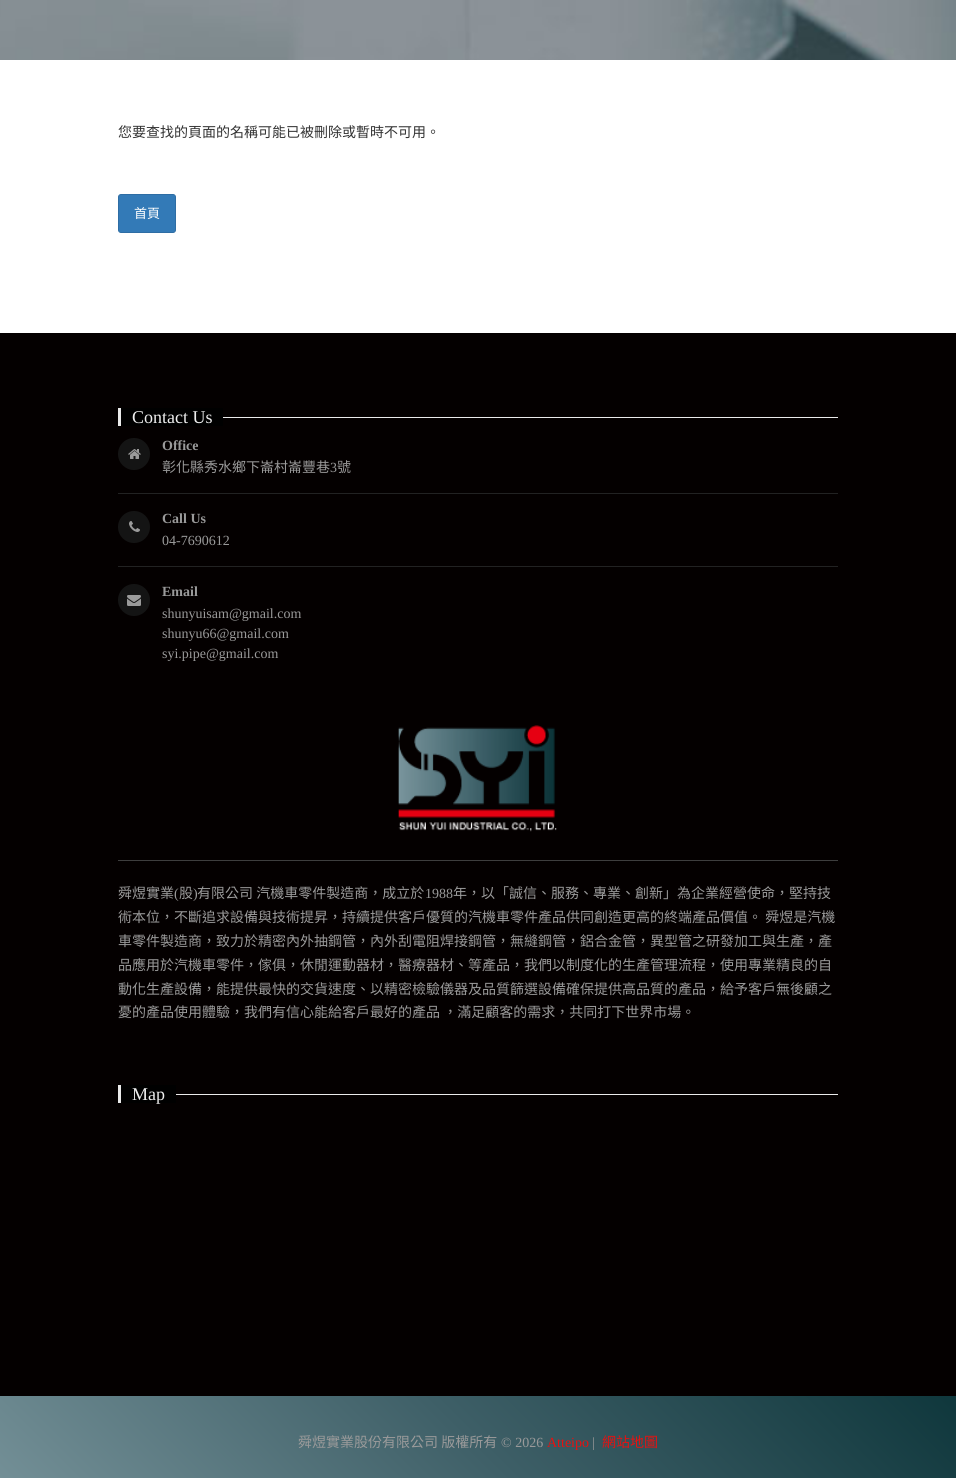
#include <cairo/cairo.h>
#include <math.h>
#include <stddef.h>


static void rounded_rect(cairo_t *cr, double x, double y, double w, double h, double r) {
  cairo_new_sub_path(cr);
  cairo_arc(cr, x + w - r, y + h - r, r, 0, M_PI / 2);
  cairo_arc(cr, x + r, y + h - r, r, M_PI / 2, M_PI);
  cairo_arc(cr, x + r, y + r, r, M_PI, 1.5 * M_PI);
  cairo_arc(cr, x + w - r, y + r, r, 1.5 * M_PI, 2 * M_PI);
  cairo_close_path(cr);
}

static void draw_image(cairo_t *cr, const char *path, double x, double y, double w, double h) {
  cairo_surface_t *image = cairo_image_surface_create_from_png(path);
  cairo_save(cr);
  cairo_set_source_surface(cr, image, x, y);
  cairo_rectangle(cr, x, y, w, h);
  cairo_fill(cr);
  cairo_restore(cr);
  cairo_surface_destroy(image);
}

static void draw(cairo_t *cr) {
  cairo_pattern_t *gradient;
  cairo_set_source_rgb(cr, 1, 1, 1);
  cairo_paint(cr);
  draw_image(cr, "images/1.png", 0, 0, 956, 60);
  cairo_set_source_rgb(cr, 51 / 255.0, 122 / 255.0, 183 / 255.0);
  rounded_rect(cr, 118.5, 194.5, 57, 38, 2.5);
  cairo_fill_preserve(cr);
  cairo_set_source_rgb(cr, 46 / 255.0, 109 / 255.0, 164 / 255.0);
  cairo_set_line_width(cr, 1);
  cairo_stroke(cr);
  cairo_set_source_rgb(cr, 4 / 255.0, 0, 0);
  cairo_rectangle(cr, 0, 333, 956, 1063);
  cairo_fill(cr);
  cairo_set_source_rgb(cr, 234 / 255.0, 234 / 255.0, 234 / 255.0);
  cairo_rectangle(cr, 118, 408, 3, 18);
  cairo_fill(cr);
  cairo_set_source_rgb(cr, 0, 0, 0);
  cairo_rectangle(cr, 121, 408, 102, 18);
  cairo_fill(cr);
  cairo_set_source_rgb(cr, 234 / 255.0, 234 / 255.0, 234 / 255.0);
  cairo_rectangle(cr, 223, 417, 615, 1);
  cairo_fill(cr);
  cairo_set_source_rgb(cr, 34 / 255.0, 34 / 255.0, 34 / 255.0);
  cairo_rectangle(cr, 118, 493, 720, 1);
  cairo_fill(cr);
  cairo_set_source_rgb(cr, 20 / 255.0, 20 / 255.0, 20 / 255.0);
  cairo_arc(cr, 134, 454, 16, 0, 2 * M_PI);
  cairo_fill(cr);
  draw_image(cr, "images/2.png", 128, 449, 13, 10);
  cairo_set_source_rgb(cr, 34 / 255.0, 34 / 255.0, 34 / 255.0);
  cairo_rectangle(cr, 118, 566, 720, 1);
  cairo_fill(cr);
  cairo_set_source_rgb(cr, 20 / 255.0, 20 / 255.0, 20 / 255.0);
  cairo_arc(cr, 134, 527, 16, 0, 2 * M_PI);
  cairo_fill(cr);
  draw_image(cr, "images/3.png", 129, 521, 11, 11);
  cairo_arc(cr, 134, 600, 16, 0, 2 * M_PI);
  cairo_fill(cr);
  draw_image(cr, "images/4.png", 127, 595, 14, 11);
  draw_image(cr, "images/5.png", 398, 725, 159, 107);
  cairo_set_source_rgb(cr, 62 / 255.0, 62 / 255.0, 62 / 255.0);
  cairo_rectangle(cr, 118, 860, 720, 1);
  cairo_fill(cr);
  cairo_set_source_rgb(cr, 234 / 255.0, 234 / 255.0, 234 / 255.0);
  cairo_rectangle(cr, 118, 1085, 3, 18);
  cairo_fill(cr);
  cairo_set_source_rgb(cr, 0, 0, 0);
  cairo_rectangle(cr, 121, 1085, 55, 18);
  cairo_fill(cr);
  cairo_set_source_rgb(cr, 234 / 255.0, 234 / 255.0, 234 / 255.0);
  cairo_rectangle(cr, 176, 1094, 662, 1);
  cairo_fill(cr);
  gradient = cairo_pattern_create_linear(216, 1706, 741, 1181);
  cairo_pattern_add_color_stop_rgba(gradient, 0, 116 / 255.0, 144 / 255.0, 151 / 255.0, 1);
  cairo_pattern_add_color_stop_rgba(gradient, 0.5, 62 / 255.0, 95 / 255.0, 103 / 255.0, 1);
  cairo_pattern_add_color_stop_rgba(gradient, 1, 15 / 255.0, 55 / 255.0, 60 / 255.0, 1);
  cairo_set_source(cr, gradient);
  cairo_pattern_destroy(gradient);
  cairo_rectangle(cr, 0, 1396, 956, 82);
  cairo_fill(cr);
  cairo_select_font_face(cr, "Noto Sans CJK TC", CAIRO_FONT_SLANT_NORMAL, CAIRO_FONT_WEIGHT_NORMAL);
  cairo_set_font_size(cr, 14);
  cairo_set_source_rgb(cr, 50 / 255.0, 50 / 255.0, 50 / 255.0);
  cairo_move_to(cr, 118, 137);
  cairo_show_text(cr, "您要查找的頁面的名稱可能已被刪除或暫時不可用。");
  cairo_set_font_size(cr, 13);
  cairo_set_source_rgb(cr, 1, 1, 1);
  cairo_move_to(cr, 134, 218);
  cairo_show_text(cr, "首頁");
  cairo_select_font_face(cr, "Liberation Serif", CAIRO_FONT_SLANT_NORMAL, CAIRO_FONT_WEIGHT_NORMAL);
  cairo_set_font_size(cr, 18);
  cairo_set_source_rgb(cr, 238 / 255.0, 238 / 255.0, 238 / 255.0);
  cairo_move_to(cr, 132, 423);
  cairo_show_text(cr, "Contact Us");
  cairo_select_font_face(cr, "Liberation Serif", CAIRO_FONT_SLANT_NORMAL, CAIRO_FONT_WEIGHT_BOLD);
  cairo_set_font_size(cr, 14);
  cairo_set_source_rgb(cr, 154 / 255.0, 154 / 255.0, 154 / 255.0);
  cairo_move_to(cr, 162, 450);
  cairo_show_text(cr, "Office");
  cairo_select_font_face(cr, "Noto Sans CJK TC", CAIRO_FONT_SLANT_NORMAL, CAIRO_FONT_WEIGHT_NORMAL);
  cairo_move_to(cr, 162, 472);
  cairo_show_text(cr, "彰化縣秀水鄉下崙村崙豐巷");
  cairo_select_font_face(cr, "Liberation Serif", CAIRO_FONT_SLANT_NORMAL, CAIRO_FONT_WEIGHT_NORMAL);
  cairo_move_to(cr, 330, 472);
  cairo_show_text(cr, "3");
  cairo_select_font_face(cr, "Noto Sans CJK TC", CAIRO_FONT_SLANT_NORMAL, CAIRO_FONT_WEIGHT_NORMAL);
  cairo_move_to(cr, 337, 472);
  cairo_show_text(cr, "號");
  cairo_select_font_face(cr, "Liberation Serif", CAIRO_FONT_SLANT_NORMAL, CAIRO_FONT_WEIGHT_BOLD);
  cairo_move_to(cr, 162, 523);
  cairo_show_text(cr, "Call Us");
  cairo_select_font_face(cr, "Liberation Serif", CAIRO_FONT_SLANT_NORMAL, CAIRO_FONT_WEIGHT_NORMAL);
  cairo_move_to(cr, 162, 545);
  cairo_show_text(cr, "04-7690612");
  cairo_select_font_face(cr, "Liberation Serif", CAIRO_FONT_SLANT_NORMAL, CAIRO_FONT_WEIGHT_BOLD);
  cairo_move_to(cr, 162, 596);
  cairo_show_text(cr, "Email");
  cairo_select_font_face(cr, "Liberation Serif", CAIRO_FONT_SLANT_NORMAL, CAIRO_FONT_WEIGHT_NORMAL);
  cairo_move_to(cr, 162, 618);
  cairo_show_text(cr, "shunyuisam@gmail.com");
  cairo_move_to(cr, 162, 638);
  cairo_show_text(cr, "shunyu66@gmail.com");
  cairo_move_to(cr, 162, 658);
  cairo_show_text(cr, "syi.pipe@gmail.com");
  cairo_select_font_face(cr, "Noto Sans CJK TC", CAIRO_FONT_SLANT_NORMAL, CAIRO_FONT_WEIGHT_NORMAL);
  cairo_move_to(cr, 118, 898);
  cairo_show_text(cr, "舜煜實業");
  cairo_select_font_face(cr, "Liberation Serif", CAIRO_FONT_SLANT_NORMAL, CAIRO_FONT_WEIGHT_NORMAL);
  cairo_move_to(cr, 174, 898);
  cairo_show_text(cr, "(");
  cairo_select_font_face(cr, "Noto Sans CJK TC", CAIRO_FONT_SLANT_NORMAL, CAIRO_FONT_WEIGHT_NORMAL);
  cairo_move_to(cr, 179, 898);
  cairo_show_text(cr, "股");
  cairo_select_font_face(cr, "Liberation Serif", CAIRO_FONT_SLANT_NORMAL, CAIRO_FONT_WEIGHT_NORMAL);
  cairo_move_to(cr, 193, 898);
  cairo_show_text(cr, ")");
  cairo_select_font_face(cr, "Noto Sans CJK TC", CAIRO_FONT_SLANT_NORMAL, CAIRO_FONT_WEIGHT_NORMAL);
  cairo_move_to(cr, 197, 898);
  cairo_show_text(cr, "有限公司 汽機車零件製造商，成立於");
  cairo_select_font_face(cr, "Liberation Serif", CAIRO_FONT_SLANT_NORMAL, CAIRO_FONT_WEIGHT_NORMAL);
  cairo_move_to(cr, 425, 898);
  cairo_show_text(cr, "1988");
  cairo_select_font_face(cr, "Noto Sans CJK TC", CAIRO_FONT_SLANT_NORMAL, CAIRO_FONT_WEIGHT_NORMAL);
  cairo_move_to(cr, 453, 898);
  cairo_show_text(cr, "年，以「誠信、服務、專業、創新」為企業經營使命，堅持技");
  cairo_move_to(cr, 118, 922);
  cairo_show_text(cr, "術本位，不斷追求設備與技術提昇，持續提供客戶優質的汽機車零件產品供同創造更高的終端產品價值。 舜煜是汽機");
  cairo_move_to(cr, 118, 946);
  cairo_show_text(cr, "車零件製造商，致力於精密內外抽鋼管，內外刮電阻焊接鋼管，無縫鋼管，鋁合金管，異型管之研發加工與生產，產");
  cairo_move_to(cr, 118, 970);
  cairo_show_text(cr, "品應用於汽機車零件，傢俱，休閒運動器材，醫療器材、等產品，我們以制度化的生產管理流程，使用專業精良的自");
  cairo_move_to(cr, 118, 994);
  cairo_show_text(cr, "動化生產設備，能提供最快的交貨速度、以精密檢驗儀器及品質篩選設備確保提供高品質的產品，給予客戶無後顧之");
  cairo_move_to(cr, 118, 1017);
  cairo_show_text(cr, "憂的產品使用體驗，我們有信心能給客戶最好的產品 ，滿足顧客的需求，共同打下世界市場。");
  cairo_select_font_face(cr, "Liberation Serif", CAIRO_FONT_SLANT_NORMAL, CAIRO_FONT_WEIGHT_NORMAL);
  cairo_set_font_size(cr, 18);
  cairo_set_source_rgb(cr, 238 / 255.0, 238 / 255.0, 238 / 255.0);
  cairo_move_to(cr, 132, 1100);
  cairo_show_text(cr, "Map");
  cairo_select_font_face(cr, "Noto Sans CJK TC", CAIRO_FONT_SLANT_NORMAL, CAIRO_FONT_WEIGHT_NORMAL);
  cairo_set_font_size(cr, 14);
  cairo_set_source_rgb(cr, 154 / 255.0, 154 / 255.0, 154 / 255.0);
  cairo_move_to(cr, 298, 1447);
  cairo_show_text(cr, "舜煜實業股份有限公司 版權所有");
  cairo_select_font_face(cr, "Liberation Serif", CAIRO_FONT_SLANT_NORMAL, CAIRO_FONT_WEIGHT_NORMAL);
  cairo_move_to(cr, 501, 1447);
  cairo_show_text(cr, "© 2026");
  cairo_set_source_rgb(cr, 230 / 255.0, 17 / 255.0, 17 / 255.0);
  cairo_move_to(cr, 547, 1447);
  cairo_show_text(cr, "Atteipo");
  cairo_set_source_rgb(cr, 154 / 255.0, 154 / 255.0, 154 / 255.0);
  cairo_move_to(cr, 592, 1447);
  cairo_show_text(cr, "|");
  cairo_select_font_face(cr, "Noto Sans CJK TC", CAIRO_FONT_SLANT_NORMAL, CAIRO_FONT_WEIGHT_NORMAL);
  cairo_set_source_rgb(cr, 230 / 255.0, 17 / 255.0, 17 / 255.0);
  cairo_move_to(cr, 602, 1447);
  cairo_show_text(cr, "網站地圖");
}

int main(void) {
  cairo_surface_t *surface = cairo_image_surface_create(CAIRO_FORMAT_RGB24, 956, 1478);
  cairo_t *cr = cairo_create(surface);
  cairo_font_options_t *options = cairo_font_options_create();
  cairo_font_options_set_hint_metrics(options, CAIRO_HINT_METRICS_OFF);
  cairo_font_options_set_hint_style(options, CAIRO_HINT_STYLE_NONE);
  cairo_set_font_options(cr, options);
  cairo_set_miter_limit(cr, 4);
  draw(cr);
  cairo_surface_write_to_png(surface, "out.png");
  cairo_font_options_destroy(options);
  cairo_destroy(cr);
  cairo_surface_destroy(surface);
  return 0;
}
